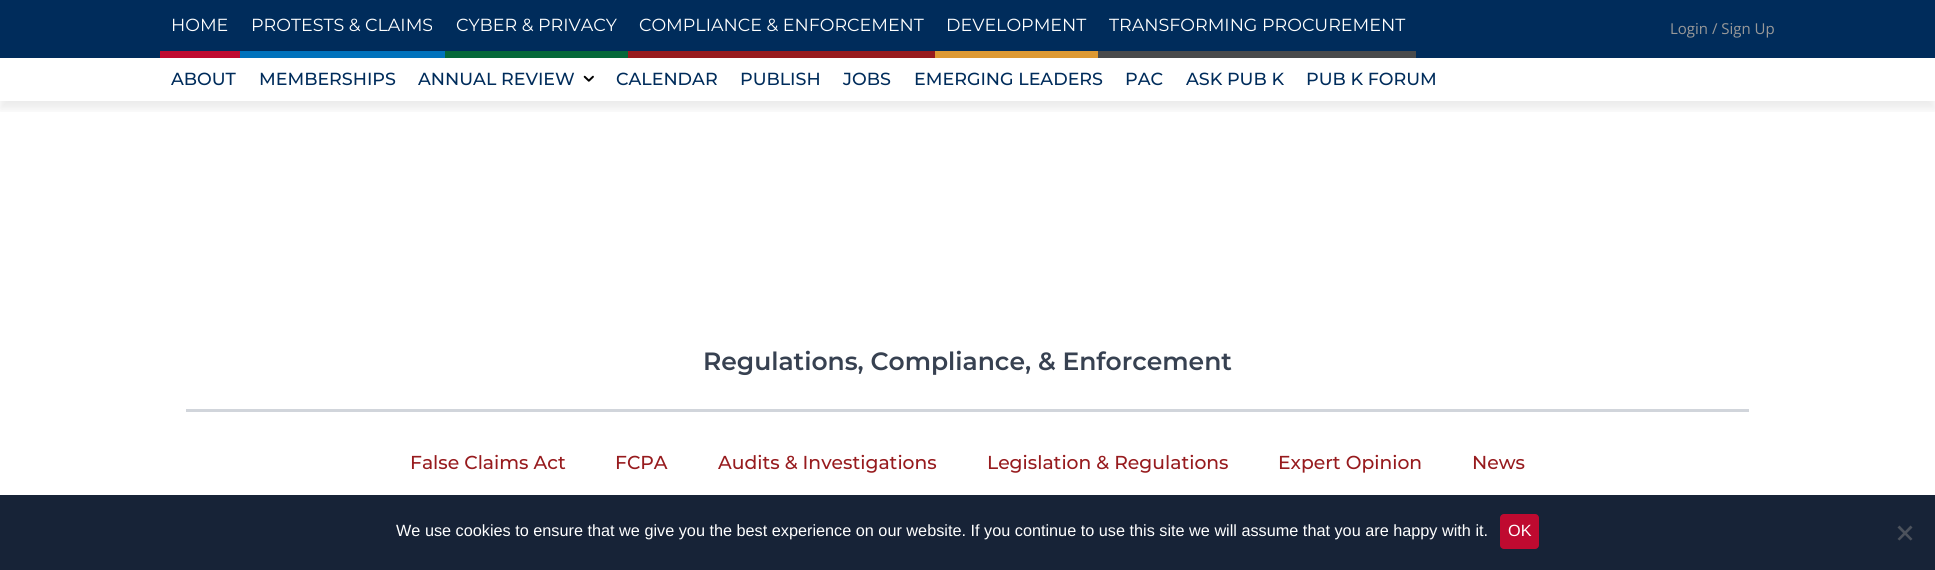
#include <cairo/cairo.h>
#include <math.h>
#include <stddef.h>


static void rounded_rect(cairo_t *cr, double x, double y, double w, double h, double r) {
  cairo_new_sub_path(cr);
  cairo_arc(cr, x + w - r, y + h - r, r, 0, M_PI / 2);
  cairo_arc(cr, x + r, y + h - r, r, M_PI / 2, M_PI);
  cairo_arc(cr, x + r, y + r, r, M_PI, 1.5 * M_PI);
  cairo_arc(cr, x + w - r, y + r, r, 1.5 * M_PI, 2 * M_PI);
  cairo_close_path(cr);
}

static void draw_shadow(cairo_t *cr, double x, double y, double w, double h, double r, double blur, double alpha) {
  cairo_push_group_with_content(cr, CAIRO_CONTENT_ALPHA);
  cairo_set_operator(cr, CAIRO_OPERATOR_SOURCE);
  for (int i = 15; i >= -15 && fmin(w, h) + blur * i / 3 > 0; i -= 2) {
    double e = blur * i / 6;
    cairo_set_source_rgba(cr, 0, 0, 0, alpha * erfc((i - 1) / 8.5) / 2);
    rounded_rect(cr, x - e, y - e, w + 2 * e, h + 2 * e, fmax(0, fmin(r + e + blur * .6, fmin(w, h) / 2 + e)));
    cairo_fill(cr);
  }
  cairo_pattern_t *soft = cairo_pop_group(cr);
  cairo_mask(cr, soft);
  cairo_pattern_destroy(soft);
}

static void draw_image(cairo_t *cr, const char *path, double x, double y, double w, double h) {
  cairo_surface_t *image = cairo_image_surface_create_from_png(path);
  cairo_save(cr);
  cairo_set_source_surface(cr, image, x, y);
  cairo_rectangle(cr, x, y, w, h);
  cairo_fill(cr);
  cairo_restore(cr);
  cairo_surface_destroy(image);
}

static void draw(cairo_t *cr) {
  cairo_set_source_rgb(cr, 1, 1, 1);
  cairo_paint(cr);
  cairo_set_source_rgb(cr, 0, 44 / 255.0, 91 / 255.0);
  cairo_rectangle(cr, 0, 0, 1935, 58);
  cairo_fill(cr);
  cairo_save(cr);
  cairo_rectangle(cr, 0, 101, 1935, 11);
  cairo_clip(cr);
  cairo_set_source_rgb(cr, 0, 0, 0);
  draw_shadow(cr, 0, 65, 1935, 44, 0, 5, 0.08);
  cairo_restore(cr);
  cairo_set_source_rgb(cr, 191 / 255.0, 10 / 255.0, 48 / 255.0);
  cairo_rectangle(cr, 160, 51, 80, 7);
  cairo_fill(cr);
  cairo_set_source_rgb(cr, 0, 114 / 255.0, 188 / 255.0);
  cairo_rectangle(cr, 240, 51, 205, 7);
  cairo_fill(cr);
  cairo_set_source_rgb(cr, 5 / 255.0, 104 / 255.0, 57 / 255.0);
  cairo_rectangle(cr, 445, 51, 183, 7);
  cairo_fill(cr);
  cairo_set_source_rgb(cr, 151 / 255.0, 27 / 255.0, 30 / 255.0);
  cairo_rectangle(cr, 628, 51, 307, 7);
  cairo_fill(cr);
  cairo_set_source_rgb(cr, 221 / 255.0, 153 / 255.0, 51 / 255.0);
  cairo_rectangle(cr, 935, 51, 163, 7);
  cairo_fill(cr);
  cairo_set_source_rgb(cr, 73 / 255.0, 74 / 255.0, 75 / 255.0);
  cairo_rectangle(cr, 1098, 51, 318, 7);
  cairo_fill(cr);
  draw_image(cr, "images/1.png", 583, 75, 11, 7);
  cairo_set_source_rgb(cr, 209 / 255.0, 213 / 255.0, 219 / 255.0);
  cairo_rectangle(cr, 186, 409, 1563, 3);
  cairo_fill(cr);
  cairo_set_source_rgb(cr, 23 / 255.0, 35 / 255.0, 55 / 255.0);
  cairo_rectangle(cr, 0, 495, 1935, 75);
  cairo_fill(cr);
  cairo_set_source_rgb(cr, 191 / 255.0, 10 / 255.0, 48 / 255.0);
  rounded_rect(cr, 1500, 514, 39, 35, 4);
  cairo_fill(cr);
  cairo_set_source_rgb(cr, 76 / 255.0, 82 / 255.0, 92 / 255.0);
  cairo_new_path(cr);
  cairo_move_to(cr, 1910.5, 525.5);
  cairo_line_to(cr, 1912.5, 527.5);
  cairo_line_to(cr, 1899.5, 540.5);
  cairo_line_to(cr, 1897.5, 539);
  cairo_close_path(cr);
  cairo_fill(cr);
  cairo_new_path(cr);
  cairo_move_to(cr, 1897.5, 527.5);
  cairo_line_to(cr, 1899.5, 525.5);
  cairo_line_to(cr, 1912.5, 539);
  cairo_line_to(cr, 1910.5, 540.5);
  cairo_close_path(cr);
  cairo_fill(cr);
  cairo_select_font_face(cr, "Montserrat", CAIRO_FONT_SLANT_NORMAL, CAIRO_FONT_WEIGHT_NORMAL);
  cairo_set_font_size(cr, 17.5);
  cairo_set_source_rgb(cr, 1, 1, 1);
  cairo_move_to(cr, 171, 31);
  cairo_show_text(cr, "HOME");
  cairo_move_to(cr, 251, 31);
  cairo_show_text(cr, "PROTESTS & CLAIMS");
  cairo_move_to(cr, 456, 31);
  cairo_show_text(cr, "CYBER & PRIVACY");
  cairo_move_to(cr, 639, 31);
  cairo_show_text(cr, "COMPLIANCE & ENFORCEMENT");
  cairo_move_to(cr, 946, 31);
  cairo_show_text(cr, "DEVELOPMENT");
  cairo_move_to(cr, 1109, 31);
  cairo_show_text(cr, "TRANSFORMING PROCUREMENT");
  cairo_select_font_face(cr, "Open Sans", CAIRO_FONT_SLANT_NORMAL, CAIRO_FONT_WEIGHT_NORMAL);
  cairo_set_font_size(cr, 15);
  cairo_set_source_rgb(cr, 153 / 255.0, 153 / 255.0, 153 / 255.0);
  cairo_move_to(cr, 1670, 34);
  cairo_show_text(cr, "Login / Sign Up");
  cairo_select_font_face(cr, "Montserrat Medium", CAIRO_FONT_SLANT_NORMAL, CAIRO_FONT_WEIGHT_NORMAL);
  cairo_set_font_size(cr, 17.5);
  cairo_set_source_rgb(cr, 0, 44 / 255.0, 91 / 255.0);
  cairo_move_to(cr, 171, 85);
  cairo_show_text(cr, "ABOUT");
  cairo_move_to(cr, 259, 85);
  cairo_show_text(cr, "MEMBERSHIPS");
  cairo_move_to(cr, 418, 85);
  cairo_show_text(cr, "ANNUAL REVIEW");
  cairo_move_to(cr, 616, 85);
  cairo_show_text(cr, "CALENDAR");
  cairo_move_to(cr, 740, 85);
  cairo_show_text(cr, "PUBLISH");
  cairo_move_to(cr, 843, 85);
  cairo_show_text(cr, "JOBS");
  cairo_move_to(cr, 914, 85);
  cairo_show_text(cr, "EMERGING LEADERS");
  cairo_move_to(cr, 1125, 85);
  cairo_show_text(cr, "PAC");
  cairo_move_to(cr, 1186, 85);
  cairo_show_text(cr, "ASK PUB K");
  cairo_move_to(cr, 1306, 85);
  cairo_show_text(cr, "PUB K FORUM");
  cairo_select_font_face(cr, "Montserrat SemiBold", CAIRO_FONT_SLANT_NORMAL, CAIRO_FONT_WEIGHT_NORMAL);
  cairo_set_font_size(cr, 25);
  cairo_set_source_rgb(cr, 55 / 255.0, 65 / 255.0, 81 / 255.0);
  cairo_move_to(cr, 703, 370);
  cairo_show_text(cr, "Regulations, Compliance, & Enforcement");
  cairo_select_font_face(cr, "Montserrat Medium", CAIRO_FONT_SLANT_NORMAL, CAIRO_FONT_WEIGHT_NORMAL);
  cairo_set_font_size(cr, 18.75);
  cairo_set_source_rgb(cr, 151 / 255.0, 27 / 255.0, 30 / 255.0);
  cairo_move_to(cr, 410, 469);
  cairo_show_text(cr, "False Claims Act");
  cairo_move_to(cr, 615, 469);
  cairo_show_text(cr, "FCPA");
  cairo_move_to(cr, 718, 469);
  cairo_show_text(cr, "Audits & Investigations");
  cairo_move_to(cr, 987, 469);
  cairo_show_text(cr, "Legislation & Regulations");
  cairo_move_to(cr, 1278, 469);
  cairo_show_text(cr, "Expert Opinion");
  cairo_move_to(cr, 1472, 469);
  cairo_show_text(cr, "News");
  cairo_select_font_face(cr, "Liberation Sans", CAIRO_FONT_SLANT_NORMAL, CAIRO_FONT_WEIGHT_NORMAL);
  cairo_set_font_size(cr, 16.25);
  cairo_set_source_rgb(cr, 1, 1, 1);
  cairo_move_to(cr, 396, 536);
  cairo_show_text(cr, "We use cookies to ensure that we give you the best experience on our website. If you continue to use this site we will assume that you are happy with it.");
  cairo_move_to(cr, 1508, 536);
  cairo_show_text(cr, "OK");
}

int main(void) {
  cairo_surface_t *surface = cairo_image_surface_create(CAIRO_FORMAT_RGB24, 1935, 570);
  cairo_t *cr = cairo_create(surface);
  cairo_font_options_t *options = cairo_font_options_create();
  cairo_font_options_set_hint_metrics(options, CAIRO_HINT_METRICS_OFF);
  cairo_font_options_set_hint_style(options, CAIRO_HINT_STYLE_NONE);
  cairo_set_font_options(cr, options);
  cairo_set_miter_limit(cr, 4);
  draw(cr);
  cairo_surface_write_to_png(surface, "out.png");
  cairo_font_options_destroy(options);
  cairo_destroy(cr);
  cairo_surface_destroy(surface);
  return 0;
}
